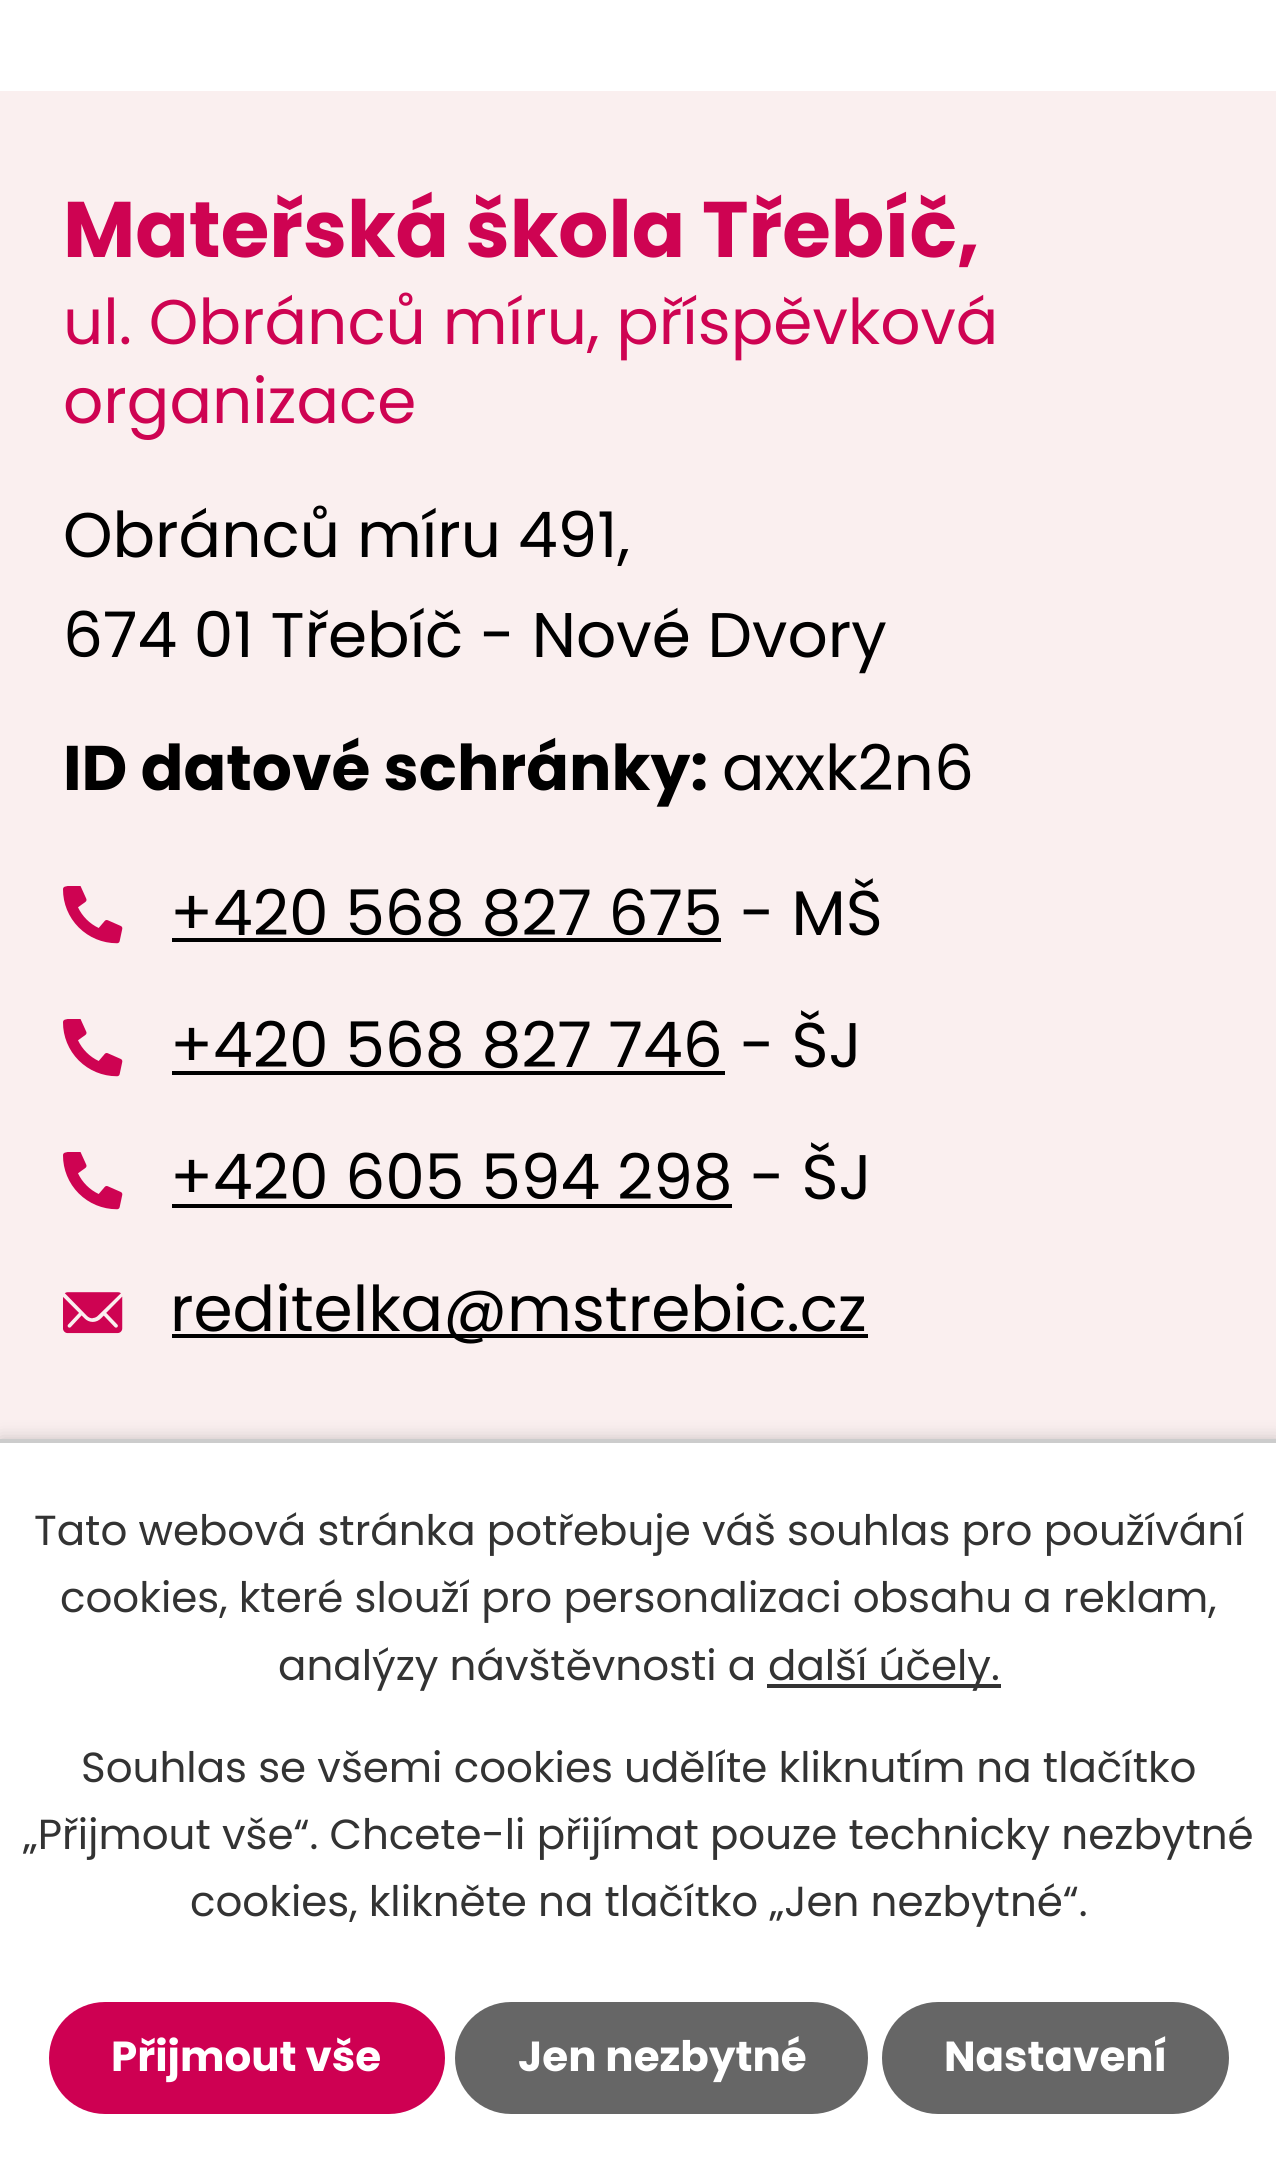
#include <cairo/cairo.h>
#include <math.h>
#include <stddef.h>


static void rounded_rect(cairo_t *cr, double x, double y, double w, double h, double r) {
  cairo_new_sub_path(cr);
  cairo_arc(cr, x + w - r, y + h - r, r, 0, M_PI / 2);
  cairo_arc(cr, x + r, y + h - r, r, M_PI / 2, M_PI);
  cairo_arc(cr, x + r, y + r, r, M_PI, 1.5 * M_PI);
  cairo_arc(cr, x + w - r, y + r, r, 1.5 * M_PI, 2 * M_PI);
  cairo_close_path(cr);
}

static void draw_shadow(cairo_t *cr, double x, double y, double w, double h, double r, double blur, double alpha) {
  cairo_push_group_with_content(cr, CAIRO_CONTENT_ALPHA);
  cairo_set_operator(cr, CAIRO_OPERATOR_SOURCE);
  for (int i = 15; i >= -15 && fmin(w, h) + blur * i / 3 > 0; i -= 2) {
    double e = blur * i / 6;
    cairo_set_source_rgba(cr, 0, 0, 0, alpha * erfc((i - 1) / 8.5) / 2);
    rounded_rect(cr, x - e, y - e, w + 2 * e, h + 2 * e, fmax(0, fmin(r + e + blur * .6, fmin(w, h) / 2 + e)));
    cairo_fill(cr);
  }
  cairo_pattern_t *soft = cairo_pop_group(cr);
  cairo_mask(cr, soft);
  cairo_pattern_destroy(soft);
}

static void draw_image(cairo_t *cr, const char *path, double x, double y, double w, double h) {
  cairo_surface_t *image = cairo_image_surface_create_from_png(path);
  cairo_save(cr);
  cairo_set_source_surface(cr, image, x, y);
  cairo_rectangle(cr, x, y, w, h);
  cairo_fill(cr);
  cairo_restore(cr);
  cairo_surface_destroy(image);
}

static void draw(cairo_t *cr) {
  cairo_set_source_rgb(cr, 1, 1, 1);
  cairo_paint(cr);
  cairo_set_source_rgb(cr, 250 / 255.0, 239 / 255.0, 239 / 255.0);
  cairo_rectangle(cr, 0, 91, 1276, 1348);
  cairo_fill(cr);
  draw_image(cr, "images/1.png", 63, 886, 60, 58);
  cairo_set_source_rgb(cr, 0, 0, 0);
  cairo_rectangle(cr, 172, 938, 549, 4);
  cairo_fill(cr);
  draw_image(cr, "images/1.png", 63, 1019, 60, 58);
  cairo_rectangle(cr, 172, 1071, 553, 4);
  cairo_fill(cr);
  draw_image(cr, "images/1.png", 63, 1152, 60, 58);
  cairo_rectangle(cr, 172, 1204, 560, 4);
  cairo_fill(cr);
  draw_image(cr, "images/2.png", 63, 1292, 60, 42);
  cairo_rectangle(cr, 172, 1334, 696, 4);
  cairo_fill(cr);
  cairo_set_source_rgb(cr, 0, 0, 0);
  draw_shadow(cr, 0, 1439, 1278, 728, 0, 9, 0.2);
  cairo_set_source_rgb(cr, 1, 1, 1);
  cairo_rectangle(cr, 0, 1443, 1276, 721);
  cairo_fill(cr);
  cairo_set_source_rgb(cr, 204 / 255.0, 204 / 255.0, 204 / 255.0);
  cairo_rectangle(cr, 0, 1439, 1276, 4);
  cairo_fill(cr);
  cairo_set_source_rgb(cr, 51 / 255.0, 51 / 255.0, 51 / 255.0);
  cairo_rectangle(cr, 767, 1684, 234, 4);
  cairo_fill(cr);
  cairo_set_source_rgb(cr, 206 / 255.0, 0, 82 / 255.0);
  rounded_rect(cr, 49, 2002, 396, 112, 56);
  cairo_fill(cr);
  cairo_set_source_rgb(cr, 102 / 255.0, 102 / 255.0, 102 / 255.0);
  rounded_rect(cr, 455, 2002, 413, 112, 56);
  cairo_fill(cr);
  rounded_rect(cr, 882, 2002, 347, 112, 56);
  cairo_fill(cr);
  cairo_select_font_face(cr, "Poppins", CAIRO_FONT_SLANT_NORMAL, CAIRO_FONT_WEIGHT_BOLD);
  cairo_set_font_size(cr, 78.75);
  cairo_set_source_rgb(cr, 206 / 255.0, 3 / 255.0, 82 / 255.0);
  cairo_move_to(cr, 63, 257);
  cairo_show_text(cr, "Mateřská škola Třebíč,");
  cairo_select_font_face(cr, "Poppins", CAIRO_FONT_SLANT_NORMAL, CAIRO_FONT_WEIGHT_NORMAL);
  cairo_set_font_size(cr, 63);
  cairo_move_to(cr, 63, 344);
  cairo_show_text(cr, "ul. Obránců míru, příspěvková");
  cairo_move_to(cr, 63, 423);
  cairo_show_text(cr, "organizace");
  cairo_set_source_rgb(cr, 0, 0, 0);
  cairo_move_to(cr, 63, 557);
  cairo_show_text(cr, "Obránců míru 491,");
  cairo_move_to(cr, 63, 657);
  cairo_show_text(cr, "674 01 Třebíč - Nové Dvory");
  cairo_select_font_face(cr, "Poppins", CAIRO_FONT_SLANT_NORMAL, CAIRO_FONT_WEIGHT_BOLD);
  cairo_move_to(cr, 63, 790);
  cairo_show_text(cr, "ID datové schránky:");
  cairo_select_font_face(cr, "Poppins", CAIRO_FONT_SLANT_NORMAL, CAIRO_FONT_WEIGHT_NORMAL);
  cairo_move_to(cr, 722, 790);
  cairo_show_text(cr, "axxk2n6");
  cairo_move_to(cr, 170, 935);
  cairo_show_text(cr, "+420 568 827 675");
  cairo_move_to(cr, 740, 935);
  cairo_show_text(cr, "- MŠ");
  cairo_move_to(cr, 170, 1067);
  cairo_show_text(cr, "+420 568 827 746");
  cairo_move_to(cr, 740, 1067);
  cairo_show_text(cr, "- ŠJ");
  cairo_move_to(cr, 170, 1199);
  cairo_show_text(cr, "+420 605 594 298");
  cairo_move_to(cr, 750, 1199);
  cairo_show_text(cr, "- ŠJ");
  cairo_move_to(cr, 170, 1331);
  cairo_show_text(cr, "reditelka@mstrebic.cz");
  cairo_set_font_size(cr, 42);
  cairo_set_source_rgb(cr, 51 / 255.0, 51 / 255.0, 51 / 255.0);
  cairo_move_to(cr, 34, 1545);
  cairo_show_text(cr, "Tato webová stránka potřebuje váš souhlas pro používání");
  cairo_move_to(cr, 60, 1612);
  cairo_show_text(cr, "cookies, které slouží pro personalizaci obsahu a reklam,");
  cairo_move_to(cr, 278, 1680);
  cairo_show_text(cr, "analýzy návštěvnosti a");
  cairo_move_to(cr, 768, 1680);
  cairo_show_text(cr, "další účely.");
  cairo_move_to(cr, 81, 1782);
  cairo_show_text(cr, "Souhlas se všemi cookies udělíte kliknutím na tlačítko");
  cairo_move_to(cr, 23, 1849);
  cairo_show_text(cr, "„Přijmout vše“. Chcete-li přijímat pouze technicky nezbytné");
  cairo_move_to(cr, 190, 1916);
  cairo_show_text(cr, "cookies, klikněte na tlačítko „Jen nezbytné“.");
  cairo_select_font_face(cr, "Poppins", CAIRO_FONT_SLANT_NORMAL, CAIRO_FONT_WEIGHT_BOLD);
  cairo_set_source_rgb(cr, 1, 1, 1);
  cairo_move_to(cr, 111, 2071);
  cairo_show_text(cr, "Přijmout vše");
  cairo_move_to(cr, 518, 2071);
  cairo_show_text(cr, "Jen nezbytné");
  cairo_move_to(cr, 944, 2071);
  cairo_show_text(cr, "Nastavení");
}

int main(void) {
  cairo_surface_t *surface = cairo_image_surface_create(CAIRO_FORMAT_RGB24, 1276, 2164);
  cairo_t *cr = cairo_create(surface);
  cairo_font_options_t *options = cairo_font_options_create();
  cairo_font_options_set_hint_metrics(options, CAIRO_HINT_METRICS_OFF);
  cairo_font_options_set_hint_style(options, CAIRO_HINT_STYLE_NONE);
  cairo_set_font_options(cr, options);
  cairo_set_miter_limit(cr, 4);
  draw(cr);
  cairo_surface_write_to_png(surface, "out.png");
  cairo_font_options_destroy(options);
  cairo_destroy(cr);
  cairo_surface_destroy(surface);
  return 0;
}
